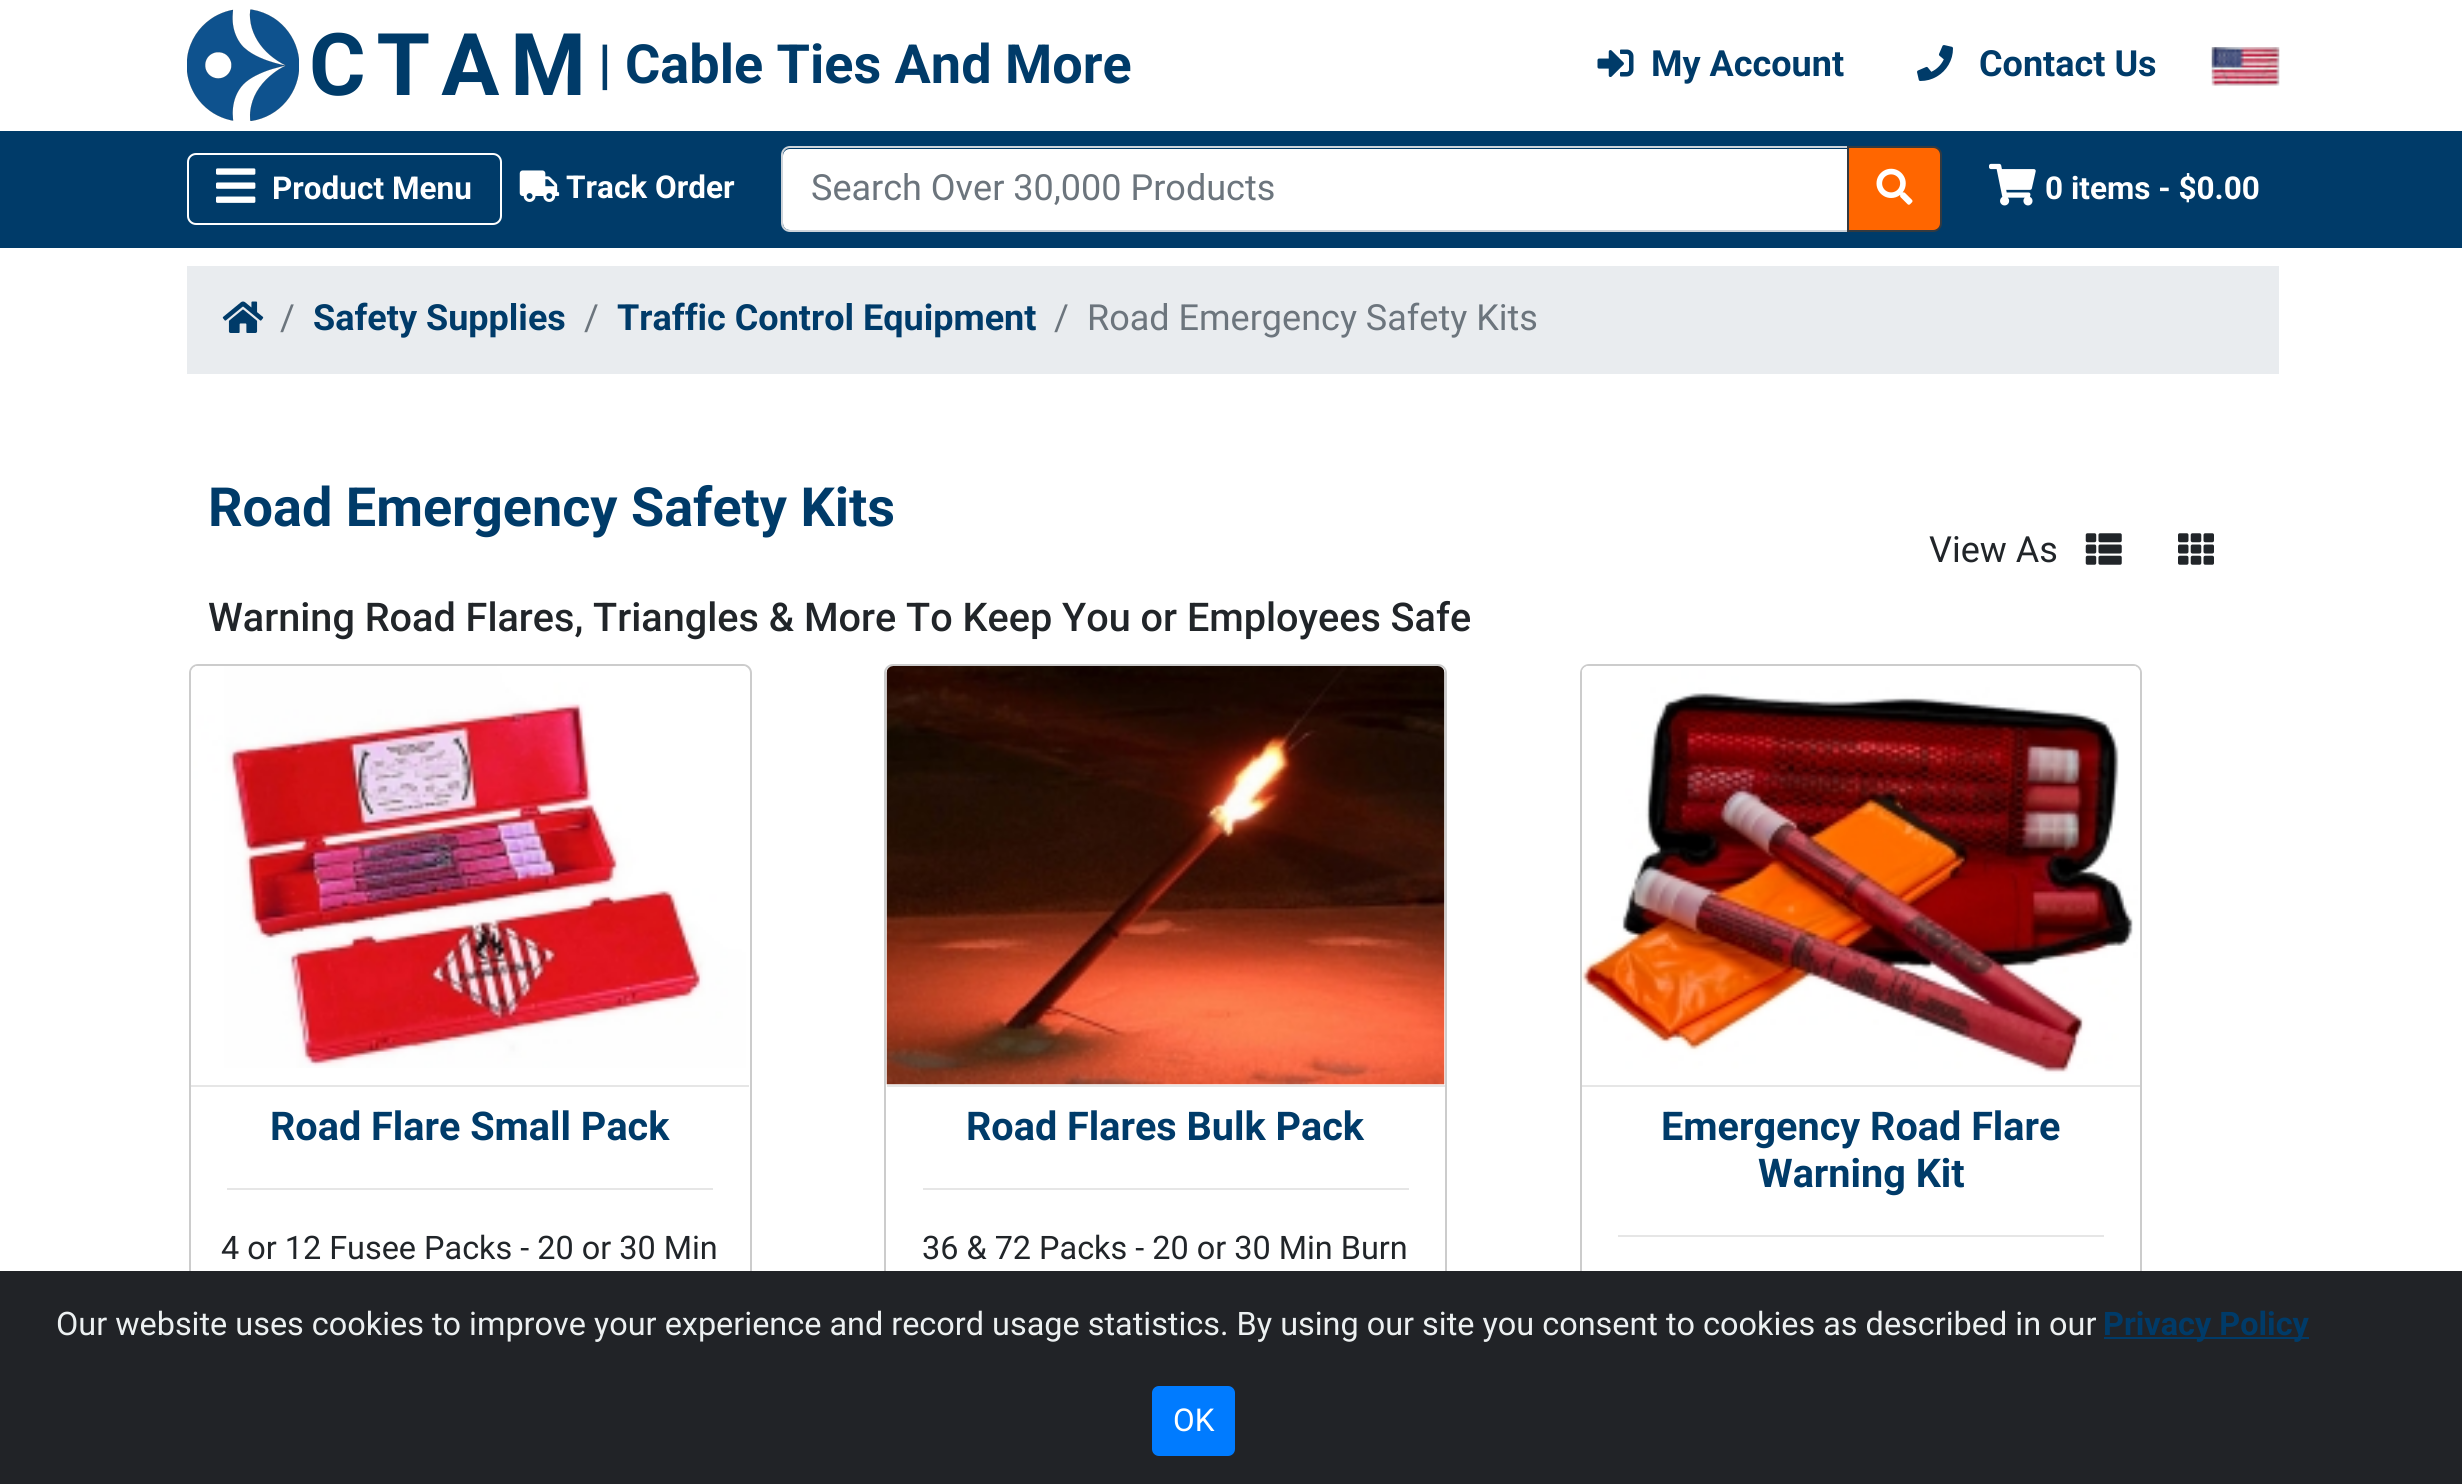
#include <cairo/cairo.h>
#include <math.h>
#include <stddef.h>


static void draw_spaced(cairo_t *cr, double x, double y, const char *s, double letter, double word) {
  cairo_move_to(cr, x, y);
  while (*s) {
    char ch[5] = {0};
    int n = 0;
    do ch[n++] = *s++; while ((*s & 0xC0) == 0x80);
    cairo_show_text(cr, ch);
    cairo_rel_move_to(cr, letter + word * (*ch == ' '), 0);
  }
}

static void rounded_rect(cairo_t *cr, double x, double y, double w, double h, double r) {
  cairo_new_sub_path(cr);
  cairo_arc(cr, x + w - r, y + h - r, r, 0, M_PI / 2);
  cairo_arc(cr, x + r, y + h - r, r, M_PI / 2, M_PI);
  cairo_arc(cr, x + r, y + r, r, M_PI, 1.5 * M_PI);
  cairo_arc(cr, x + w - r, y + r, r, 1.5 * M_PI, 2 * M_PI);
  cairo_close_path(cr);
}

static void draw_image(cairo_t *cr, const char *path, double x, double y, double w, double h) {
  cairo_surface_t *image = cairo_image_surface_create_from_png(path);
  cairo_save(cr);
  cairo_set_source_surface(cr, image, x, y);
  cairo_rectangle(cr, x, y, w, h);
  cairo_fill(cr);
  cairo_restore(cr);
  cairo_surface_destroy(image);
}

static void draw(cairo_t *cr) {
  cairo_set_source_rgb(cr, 1, 1, 1);
  cairo_paint(cr);
  draw_image(cr, "images/1.png", 187, 9, 112, 112);
  draw_image(cr, "images/2.png", 1597, 49, 37, 28);
  draw_image(cr, "images/3.png", 1917, 45, 36, 36);
  draw_image(cr, "images/4.png", 2211, 47, 69, 39);
  cairo_set_source_rgb(cr, 0, 59 / 255.0, 105 / 255.0);
  cairo_rectangle(cr, 0, 131, 2462, 117);
  cairo_fill(cr);
  rounded_rect(cr, 188, 154, 313, 70, 8);
  cairo_set_source_rgb(cr, 1, 1, 1);
  cairo_stroke(cr);
  draw_image(cr, "images/5.png", 216, 168, 40, 35);
  draw_image(cr, "images/6.png", 519, 170, 41, 32);
  cairo_new_path(cr);
  cairo_move_to(cr, 790, 149);
  cairo_line_to(cr, 1847, 149);
  cairo_line_to(cr, 1847, 230);
  cairo_line_to(cr, 790, 230);
  cairo_curve_to(cr, 786, 230, 783, 227, 783, 223);
  cairo_line_to(cr, 783, 156);
  cairo_curve_to(cr, 783, 152, 786, 149, 790, 149);
  cairo_close_path(cr);
  cairo_fill(cr);
  cairo_new_path(cr);
  cairo_move_to(cr, 790, 147);
  cairo_line_to(cr, 1849, 147);
  cairo_line_to(cr, 1849, 231);
  cairo_line_to(cr, 790, 231);
  cairo_curve_to(cr, 785.5, 231, 782, 227.5, 782, 223);
  cairo_line_to(cr, 782, 155);
  cairo_curve_to(cr, 782, 150.5, 785.5, 147, 790, 147);
  cairo_close_path(cr);
  cairo_set_source_rgb(cr, 206 / 255.0, 212 / 255.0, 218 / 255.0);
  cairo_stroke(cr);
  cairo_set_source_rgb(cr, 1, 102 / 255.0, 0);
  cairo_new_path(cr);
  cairo_move_to(cr, 1848, 147);
  cairo_line_to(cr, 1933, 147);
  cairo_curve_to(cr, 1937.5, 147, 1941, 150.5, 1941, 155);
  cairo_line_to(cr, 1941, 223);
  cairo_curve_to(cr, 1941, 227.5, 1937.5, 231, 1933, 231);
  cairo_line_to(cr, 1848, 231);
  cairo_close_path(cr);
  cairo_fill_preserve(cr);
  cairo_set_source_rgb(cr, 52 / 255.0, 58 / 255.0, 64 / 255.0);
  cairo_stroke(cr);
  draw_image(cr, "images/7.png", 1876, 168, 37, 37);
  draw_image(cr, "images/8.png", 1989, 163, 47, 43);
  cairo_set_source_rgb(cr, 233 / 255.0, 236 / 255.0, 239 / 255.0);
  cairo_rectangle(cr, 187, 266, 2092, 108);
  cairo_fill(cr);
  draw_image(cr, "images/9.png", 222, 301, 42, 32);
  draw_image(cr, "images/10.png", 2085, 533, 37, 32);
  draw_image(cr, "images/11.png", 2178, 533, 36, 32);
  rounded_rect(cr, 190, 665, 561, 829, 8);
  cairo_set_source_rgb(cr, 204 / 255.0, 204 / 255.0, 204 / 255.0);
  cairo_stroke(cr);
  cairo_set_source_rgb(cr, 1, 1, 1);
  cairo_new_path(cr);
  cairo_move_to(cr, 198, 666);
  cairo_line_to(cr, 742, 666);
  cairo_curve_to(cr, 746, 666, 749, 669, 749, 673);
  cairo_line_to(cr, 749, 1085);
  cairo_line_to(cr, 191, 1085);
  cairo_line_to(cr, 191, 673);
  cairo_curve_to(cr, 191, 669, 194, 666, 198, 666);
  cairo_close_path(cr);
  cairo_fill(cr);
  draw_image(cr, "images/12.png", 193, 666, 553, 402);
  cairo_set_source_rgb(cr, 230 / 255.0, 230 / 255.0, 230 / 255.0);
  cairo_rectangle(cr, 191, 1085, 558, 2);
  cairo_fill(cr);
  cairo_rectangle(cr, 227, 1188, 486, 2);
  cairo_fill(cr);
  rounded_rect(cr, 885, 665, 561, 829, 8);
  cairo_set_source_rgb(cr, 204 / 255.0, 204 / 255.0, 204 / 255.0);
  cairo_stroke(cr);
  cairo_set_source_rgb(cr, 1, 1, 1);
  cairo_new_path(cr);
  cairo_move_to(cr, 894, 666);
  cairo_line_to(cr, 1438, 666);
  cairo_curve_to(cr, 1442, 666, 1445, 669, 1445, 673);
  cairo_line_to(cr, 1445, 1085);
  cairo_line_to(cr, 887, 1085);
  cairo_line_to(cr, 887, 673);
  cairo_curve_to(cr, 887, 669, 890, 666, 894, 666);
  cairo_close_path(cr);
  cairo_fill(cr);
  draw_image(cr, "images/13.png", 886, 666, 559, 419);
  cairo_set_source_rgb(cr, 230 / 255.0, 230 / 255.0, 230 / 255.0);
  cairo_rectangle(cr, 887, 1085, 558, 2);
  cairo_fill(cr);
  cairo_rectangle(cr, 923, 1188, 486, 2);
  cairo_fill(cr);
  rounded_rect(cr, 1581, 665, 560, 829, 8);
  cairo_set_source_rgb(cr, 204 / 255.0, 204 / 255.0, 204 / 255.0);
  cairo_stroke(cr);
  cairo_set_source_rgb(cr, 1, 1, 1);
  cairo_new_path(cr);
  cairo_move_to(cr, 1589, 666);
  cairo_line_to(cr, 2133, 666);
  cairo_curve_to(cr, 2137, 666, 2140, 669, 2140, 673);
  cairo_line_to(cr, 2140, 1085);
  cairo_line_to(cr, 1582, 1085);
  cairo_line_to(cr, 1582, 673);
  cairo_curve_to(cr, 1582, 669, 1585, 666, 1589, 666);
  cairo_close_path(cr);
  cairo_fill(cr);
  draw_image(cr, "images/14.png", 1582, 666, 556, 408);
  cairo_set_source_rgb(cr, 230 / 255.0, 230 / 255.0, 230 / 255.0);
  cairo_rectangle(cr, 1582, 1085, 558, 2);
  cairo_fill(cr);
  cairo_rectangle(cr, 1618, 1235, 486, 2);
  cairo_fill(cr);
  cairo_set_source_rgb(cr, 33 / 255.0, 35 / 255.0, 39 / 255.0);
  cairo_rectangle(cr, 0, 1271, 2462, 213);
  cairo_fill(cr);
  cairo_set_source_rgb(cr, 0, 59 / 255.0, 105 / 255.0);
  cairo_rectangle(cr, 2104, 1337, 205, 2);
  cairo_fill(cr);
  cairo_set_source_rgb(cr, 0, 123 / 255.0, 1);
  rounded_rect(cr, 1153, 1387, 81, 68, 6);
  cairo_fill_preserve(cr);
  cairo_stroke(cr);
  cairo_select_font_face(cr, "Roboto", CAIRO_FONT_SLANT_NORMAL, CAIRO_FONT_WEIGHT_BOLD);
  cairo_set_font_size(cr, 86.5);
  cairo_set_source_rgb(cr, 0, 59 / 255.0, 105 / 255.0);
  draw_spaced(cr, 309, 95, "CTAM", 11, 0);
  cairo_set_font_size(cr, 54);
  cairo_move_to(cr, 598, 83);
  cairo_show_text(cr, "| Cable Ties And More");
  cairo_set_font_size(cr, 36);
  cairo_move_to(cr, 1651, 76);
  cairo_show_text(cr, "My Account");
  cairo_move_to(cr, 1979, 76);
  cairo_show_text(cr, "Contact Us");
  cairo_set_font_size(cr, 31.5);
  cairo_set_source_rgb(cr, 1, 1, 1);
  cairo_move_to(cr, 272, 199);
  cairo_show_text(cr, "Product Menu");
  cairo_move_to(cr, 566, 198);
  cairo_show_text(cr, "Track Order");
  cairo_select_font_face(cr, "Roboto", CAIRO_FONT_SLANT_NORMAL, CAIRO_FONT_WEIGHT_NORMAL);
  cairo_set_font_size(cr, 36);
  cairo_set_source_rgb(cr, 108 / 255.0, 117 / 255.0, 125 / 255.0);
  cairo_move_to(cr, 811, 200);
  cairo_show_text(cr, "Search Over 30,000 Products");
  cairo_select_font_face(cr, "Roboto", CAIRO_FONT_SLANT_NORMAL, CAIRO_FONT_WEIGHT_BOLD);
  cairo_set_font_size(cr, 31.5);
  cairo_set_source_rgb(cr, 1, 1, 1);
  cairo_move_to(cr, 2045, 199);
  cairo_show_text(cr, "0 items - $0.00");
  cairo_select_font_face(cr, "Roboto", CAIRO_FONT_SLANT_NORMAL, CAIRO_FONT_WEIGHT_NORMAL);
  cairo_set_font_size(cr, 36);
  cairo_set_source_rgb(cr, 108 / 255.0, 117 / 255.0, 125 / 255.0);
  cairo_move_to(cr, 280, 330);
  cairo_show_text(cr, "/");
  cairo_select_font_face(cr, "Roboto", CAIRO_FONT_SLANT_NORMAL, CAIRO_FONT_WEIGHT_BOLD);
  cairo_set_source_rgb(cr, 0, 59 / 255.0, 105 / 255.0);
  cairo_move_to(cr, 313, 330);
  cairo_show_text(cr, "Safety Supplies");
  cairo_select_font_face(cr, "Roboto", CAIRO_FONT_SLANT_NORMAL, CAIRO_FONT_WEIGHT_NORMAL);
  cairo_set_source_rgb(cr, 108 / 255.0, 117 / 255.0, 125 / 255.0);
  cairo_move_to(cr, 584, 330);
  cairo_show_text(cr, "/");
  cairo_select_font_face(cr, "Roboto", CAIRO_FONT_SLANT_NORMAL, CAIRO_FONT_WEIGHT_BOLD);
  cairo_set_source_rgb(cr, 0, 59 / 255.0, 105 / 255.0);
  cairo_move_to(cr, 617, 330);
  cairo_show_text(cr, "Traffic Control Equipment");
  cairo_select_font_face(cr, "Roboto", CAIRO_FONT_SLANT_NORMAL, CAIRO_FONT_WEIGHT_NORMAL);
  cairo_set_source_rgb(cr, 108 / 255.0, 117 / 255.0, 125 / 255.0);
  cairo_move_to(cr, 1054, 330);
  cairo_show_text(cr, "/");
  cairo_move_to(cr, 1087, 330);
  cairo_show_text(cr, "Road Emergency Safety Kits");
  cairo_select_font_face(cr, "Roboto", CAIRO_FONT_SLANT_NORMAL, CAIRO_FONT_WEIGHT_BOLD);
  cairo_set_font_size(cr, 54);
  cairo_set_source_rgb(cr, 0, 59 / 255.0, 105 / 255.0);
  cairo_move_to(cr, 208, 526);
  cairo_show_text(cr, "Road Emergency Safety Kits");
  cairo_select_font_face(cr, "Roboto Medium", CAIRO_FONT_SLANT_NORMAL, CAIRO_FONT_WEIGHT_NORMAL);
  cairo_set_font_size(cr, 39.6);
  cairo_set_source_rgb(cr, 33 / 255.0, 37 / 255.0, 41 / 255.0);
  cairo_move_to(cr, 208, 631);
  cairo_show_text(cr, "Warning Road Flares, Triangles & More To Keep You or Employees Safe");
  cairo_select_font_face(cr, "Roboto", CAIRO_FONT_SLANT_NORMAL, CAIRO_FONT_WEIGHT_NORMAL);
  cairo_set_font_size(cr, 36);
  cairo_move_to(cr, 1929, 562);
  cairo_show_text(cr, "View As");
  cairo_select_font_face(cr, "Roboto", CAIRO_FONT_SLANT_NORMAL, CAIRO_FONT_WEIGHT_BOLD);
  cairo_set_font_size(cr, 39.6);
  cairo_set_source_rgb(cr, 0, 59 / 255.0, 105 / 255.0);
  cairo_move_to(cr, 270, 1140);
  cairo_show_text(cr, "Road Flare Small Pack");
  cairo_select_font_face(cr, "Roboto", CAIRO_FONT_SLANT_NORMAL, CAIRO_FONT_WEIGHT_NORMAL);
  cairo_set_font_size(cr, 32.4);
  cairo_set_source_rgb(cr, 33 / 255.0, 37 / 255.0, 41 / 255.0);
  cairo_move_to(cr, 221, 1259);
  cairo_show_text(cr, "4 or 12 Fusee Packs - 20 or 30 Min");
  cairo_select_font_face(cr, "Roboto", CAIRO_FONT_SLANT_NORMAL, CAIRO_FONT_WEIGHT_BOLD);
  cairo_set_font_size(cr, 39.6);
  cairo_set_source_rgb(cr, 0, 59 / 255.0, 105 / 255.0);
  cairo_move_to(cr, 966, 1140);
  cairo_show_text(cr, "Road Flares Bulk Pack");
  cairo_select_font_face(cr, "Roboto", CAIRO_FONT_SLANT_NORMAL, CAIRO_FONT_WEIGHT_NORMAL);
  cairo_set_font_size(cr, 32.4);
  cairo_set_source_rgb(cr, 33 / 255.0, 37 / 255.0, 41 / 255.0);
  cairo_move_to(cr, 922, 1259);
  cairo_show_text(cr, "36 & 72 Packs - 20 or 30 Min Burn");
  cairo_select_font_face(cr, "Roboto", CAIRO_FONT_SLANT_NORMAL, CAIRO_FONT_WEIGHT_BOLD);
  cairo_set_font_size(cr, 39.6);
  cairo_set_source_rgb(cr, 0, 59 / 255.0, 105 / 255.0);
  cairo_move_to(cr, 1661, 1140);
  cairo_show_text(cr, "Emergency Road Flare");
  cairo_move_to(cr, 1758, 1187);
  cairo_show_text(cr, "Warning Kit");
  cairo_select_font_face(cr, "Roboto", CAIRO_FONT_SLANT_NORMAL, CAIRO_FONT_WEIGHT_NORMAL);
  cairo_set_font_size(cr, 32.4);
  cairo_set_source_rgb(cr, 236 / 255.0, 240 / 255.0, 241 / 255.0);
  cairo_move_to(cr, 56, 1335);
  cairo_show_text(cr, "Our website uses cookies to improve your experience and record usage statistics. By using our site you consent to cookies as described in our");
  cairo_select_font_face(cr, "Roboto", CAIRO_FONT_SLANT_NORMAL, CAIRO_FONT_WEIGHT_BOLD);
  cairo_set_source_rgb(cr, 0, 59 / 255.0, 105 / 255.0);
  cairo_move_to(cr, 2103, 1335);
  cairo_show_text(cr, "Privacy Policy");
  cairo_select_font_face(cr, "Roboto", CAIRO_FONT_SLANT_NORMAL, CAIRO_FONT_WEIGHT_NORMAL);
  cairo_set_font_size(cr, 31.5);
  cairo_set_source_rgb(cr, 1, 1, 1);
  cairo_move_to(cr, 1173, 1431);
  cairo_show_text(cr, "OK");
}

int main(void) {
  cairo_surface_t *surface = cairo_image_surface_create(CAIRO_FORMAT_RGB24, 2462, 1484);
  cairo_t *cr = cairo_create(surface);
  cairo_font_options_t *options = cairo_font_options_create();
  cairo_font_options_set_hint_metrics(options, CAIRO_HINT_METRICS_OFF);
  cairo_font_options_set_hint_style(options, CAIRO_HINT_STYLE_NONE);
  cairo_set_font_options(cr, options);
  cairo_set_miter_limit(cr, 4);
  draw(cr);
  cairo_surface_write_to_png(surface, "out.png");
  cairo_font_options_destroy(options);
  cairo_destroy(cr);
  cairo_surface_destroy(surface);
  return 0;
}
